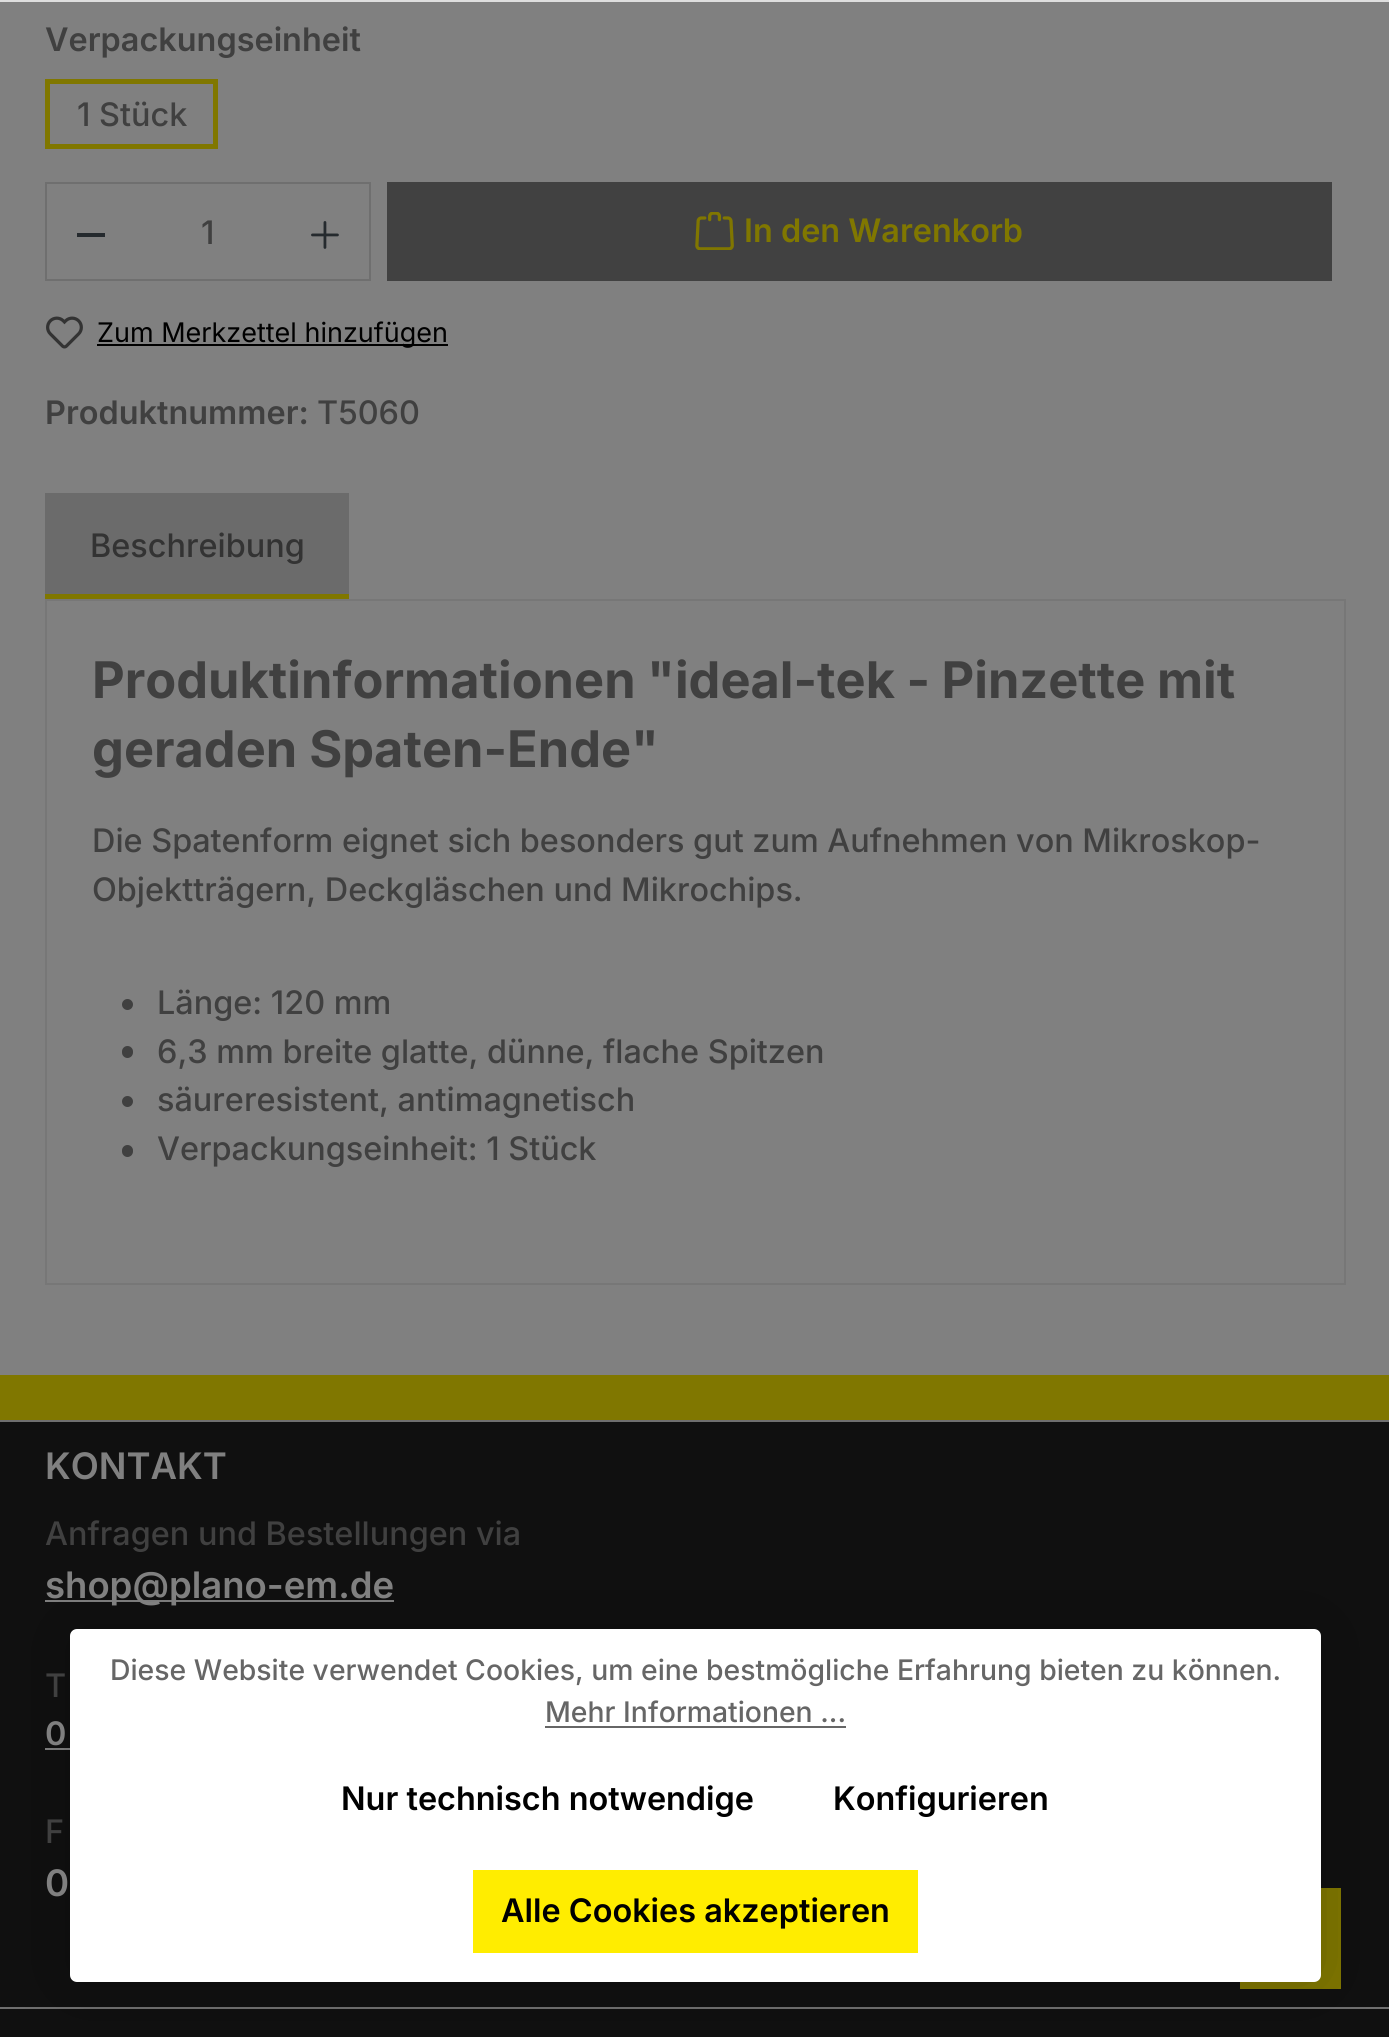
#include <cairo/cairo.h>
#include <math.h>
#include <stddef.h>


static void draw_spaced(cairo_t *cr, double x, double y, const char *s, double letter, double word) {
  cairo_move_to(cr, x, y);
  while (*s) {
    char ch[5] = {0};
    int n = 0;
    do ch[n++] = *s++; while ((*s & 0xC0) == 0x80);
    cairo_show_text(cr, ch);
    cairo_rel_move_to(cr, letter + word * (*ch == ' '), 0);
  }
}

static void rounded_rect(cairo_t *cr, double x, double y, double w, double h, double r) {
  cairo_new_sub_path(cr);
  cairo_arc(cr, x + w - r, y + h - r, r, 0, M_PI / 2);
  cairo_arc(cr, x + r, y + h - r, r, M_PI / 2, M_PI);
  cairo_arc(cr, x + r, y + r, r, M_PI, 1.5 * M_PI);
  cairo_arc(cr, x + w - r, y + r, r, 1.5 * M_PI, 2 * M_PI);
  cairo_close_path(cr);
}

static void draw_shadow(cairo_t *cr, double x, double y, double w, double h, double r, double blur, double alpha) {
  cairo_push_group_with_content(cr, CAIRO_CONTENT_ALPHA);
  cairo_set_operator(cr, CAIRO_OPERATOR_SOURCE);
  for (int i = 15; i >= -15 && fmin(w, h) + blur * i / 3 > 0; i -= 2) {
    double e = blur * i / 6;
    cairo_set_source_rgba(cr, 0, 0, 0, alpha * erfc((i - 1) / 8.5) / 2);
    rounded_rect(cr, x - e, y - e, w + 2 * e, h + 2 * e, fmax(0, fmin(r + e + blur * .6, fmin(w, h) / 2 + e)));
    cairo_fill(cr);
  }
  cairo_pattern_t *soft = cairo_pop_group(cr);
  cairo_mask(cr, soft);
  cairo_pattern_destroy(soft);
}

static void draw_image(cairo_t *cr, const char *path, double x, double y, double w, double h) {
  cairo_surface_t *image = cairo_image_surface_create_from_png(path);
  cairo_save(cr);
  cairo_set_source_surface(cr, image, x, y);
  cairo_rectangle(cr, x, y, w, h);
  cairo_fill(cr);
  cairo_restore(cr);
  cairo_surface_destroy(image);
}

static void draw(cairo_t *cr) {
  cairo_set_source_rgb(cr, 128 / 255.0, 128 / 255.0, 128 / 255.0);
  cairo_paint(cr);
  cairo_rectangle(cr, 47.5, 81.5, 168, 65);
  cairo_set_source_rgb(cr, 128 / 255.0, 119 / 255.0, 0);
  cairo_set_line_width(cr, 5);
  cairo_stroke(cr);
  cairo_set_source_rgb(cr, 111 / 255.0, 111 / 255.0, 111 / 255.0);
  cairo_rectangle(cr, 45, 182, 326, 2);
  cairo_fill(cr);
  cairo_rectangle(cr, 45, 279, 239, 2);
  cairo_fill(cr);
  cairo_rectangle(cr, 45, 182, 2, 99);
  cairo_fill(cr);
  cairo_set_source_rgb(cr, 37 / 255.0, 42 / 255.0, 46 / 255.0);
  cairo_rectangle(cr, 77, 233, 28, 4);
  cairo_fill(cr);
  cairo_set_source_rgb(cr, 111 / 255.0, 111 / 255.0, 111 / 255.0);
  cairo_rectangle(cr, 369, 182, 2, 99);
  cairo_fill(cr);
  cairo_rectangle(cr, 281, 279, 90, 2);
  cairo_fill(cr);
  draw_image(cr, "images/1.png", 311, 221, 28, 28);
  cairo_set_source_rgb(cr, 65 / 255.0, 65 / 255.0, 65 / 255.0);
  cairo_rectangle(cr, 387, 182, 945, 99);
  cairo_fill(cr);
  draw_image(cr, "images/2.png", 695, 212, 39, 38);
  draw_image(cr, "images/3.png", 46, 316, 37, 33);
  cairo_set_source_rgb(cr, 0, 0, 0);
  cairo_rectangle(cr, 97, 344, 351, 2);
  cairo_fill(cr);
  cairo_set_source_rgb(cr, 107 / 255.0, 107 / 255.0, 107 / 255.0);
  cairo_rectangle(cr, 45, 493, 304, 101);
  cairo_fill(cr);
  cairo_set_source_rgb(cr, 128 / 255.0, 119 / 255.0, 0);
  cairo_rectangle(cr, 45, 594, 304, 5);
  cairo_fill(cr);
  cairo_rectangle(cr, 46, 600, 1299, 684);
  cairo_set_source_rgb(cr, 119 / 255.0, 119 / 255.0, 119 / 255.0);
  cairo_set_line_width(cr, 2);
  cairo_stroke(cr);
  cairo_set_source_rgb(cr, 64 / 255.0, 64 / 255.0, 64 / 255.0);
  cairo_arc(cr, 127.5, 1004.5, 5.5, 0, 2 * M_PI);
  cairo_fill(cr);
  rounded_rect(cr, 122, 1046, 11, 12, 5.5);
  cairo_fill(cr);
  cairo_arc(cr, 127.5, 1101.5, 5.5, 0, 2 * M_PI);
  cairo_fill(cr);
  rounded_rect(cr, 122, 1145, 11, 12, 5.5);
  cairo_fill(cr);
  cairo_set_source_rgb(cr, 16 / 255.0, 16 / 255.0, 16 / 255.0);
  cairo_rectangle(cr, 0, 1422, 1389, 615);
  cairo_fill(cr);
  cairo_set_source_rgb(cr, 128 / 255.0, 119 / 255.0, 0);
  cairo_rectangle(cr, 0, 1375, 1389, 45);
  cairo_fill(cr);
  cairo_set_source_rgb(cr, 111 / 255.0, 111 / 255.0, 111 / 255.0);
  cairo_rectangle(cr, 0, 1420, 1389, 2);
  cairo_fill(cr);
  cairo_rectangle(cr, 0, 2007, 1389, 2);
  cairo_fill(cr);
  cairo_set_source_rgb(cr, 128 / 255.0, 128 / 255.0, 128 / 255.0);
  cairo_rectangle(cr, 45, 1600, 349, 2);
  cairo_fill(cr);
  cairo_rectangle(cr, 45, 1748, 25, 2);
  cairo_fill(cr);
  cairo_set_source_rgb(cr, 222 / 255.0, 222 / 255.0, 222 / 255.0);
  cairo_rectangle(cr, 0, 0, 1389, 2);
  cairo_fill(cr);
  cairo_set_source_rgb(cr, 128 / 255.0, 119 / 255.0, 0);
  cairo_rectangle(cr, 1240, 1888, 101, 101);
  cairo_fill(cr);
  cairo_set_source_rgb(cr, 0, 0, 0);
  draw_shadow(cr, 70, 1629, 1251, 353, 7, 34, 0.2);
  cairo_set_source_rgb(cr, 1, 1, 1);
  rounded_rect(cr, 70, 1629, 1251, 353, 7);
  cairo_fill(cr);
  cairo_set_source_rgb(cr, 102 / 255.0, 102 / 255.0, 102 / 255.0);
  cairo_rectangle(cr, 545, 1726, 301, 2);
  cairo_fill(cr);
  cairo_set_source_rgb(cr, 1, 237 / 255.0, 0);
  cairo_rectangle(cr, 473, 1870, 445, 83);
  cairo_fill(cr);
  cairo_select_font_face(cr, "Inter SemiBold", CAIRO_FONT_SLANT_NORMAL, CAIRO_FONT_WEIGHT_NORMAL);
  cairo_set_font_size(cr, 32.4);
  cairo_set_source_rgb(cr, 64 / 255.0, 64 / 255.0, 64 / 255.0);
  cairo_move_to(cr, 45, 51);
  cairo_show_text(cr, "Verpackungseinheit");
  cairo_select_font_face(cr, "Inter Medium", CAIRO_FONT_SLANT_NORMAL, CAIRO_FONT_WEIGHT_NORMAL);
  cairo_move_to(cr, 77, 126);
  cairo_show_text(cr, "1 Stück");
  cairo_move_to(cr, 201, 244);
  cairo_show_text(cr, "1");
  cairo_select_font_face(cr, "Inter SemiBold", CAIRO_FONT_SLANT_NORMAL, CAIRO_FONT_WEIGHT_NORMAL);
  cairo_set_source_rgb(cr, 128 / 255.0, 119 / 255.0, 0);
  cairo_move_to(cr, 744, 242);
  cairo_show_text(cr, "In den Warenkorb");
  cairo_select_font_face(cr, "Inter", CAIRO_FONT_SLANT_NORMAL, CAIRO_FONT_WEIGHT_NORMAL);
  cairo_set_font_size(cr, 27);
  cairo_set_source_rgb(cr, 0, 0, 0);
  cairo_move_to(cr, 97, 342);
  cairo_show_text(cr, "Zum Merkzettel hinzufügen");
  cairo_select_font_face(cr, "Inter SemiBold", CAIRO_FONT_SLANT_NORMAL, CAIRO_FONT_WEIGHT_NORMAL);
  cairo_set_font_size(cr, 32.4);
  cairo_set_source_rgb(cr, 64 / 255.0, 64 / 255.0, 64 / 255.0);
  cairo_move_to(cr, 45, 424);
  cairo_show_text(cr, "Produktnummer:");
  cairo_select_font_face(cr, "Inter Medium", CAIRO_FONT_SLANT_NORMAL, CAIRO_FONT_WEIGHT_NORMAL);
  cairo_move_to(cr, 317, 424);
  cairo_show_text(cr, "T5060");
  cairo_set_source_rgb(cr, 51 / 255.0, 51 / 255.0, 51 / 255.0);
  cairo_move_to(cr, 90, 557);
  cairo_show_text(cr, "Beschreibung");
  cairo_select_font_face(cr, "Inter", CAIRO_FONT_SLANT_NORMAL, CAIRO_FONT_WEIGHT_BOLD);
  cairo_set_font_size(cr, 50.5);
  cairo_set_source_rgb(cr, 64 / 255.0, 64 / 255.0, 64 / 255.0);
  draw_spaced(cr, 92, 698, "Produktinformationen \"ideal-tek - Pinzette mit", 0, -0.5);
  cairo_move_to(cr, 92, 767);
  cairo_show_text(cr, "geraden Spaten-Ende\"");
  cairo_select_font_face(cr, "Inter Medium", CAIRO_FONT_SLANT_NORMAL, CAIRO_FONT_WEIGHT_NORMAL);
  cairo_set_font_size(cr, 32.4);
  cairo_move_to(cr, 92, 852);
  cairo_show_text(cr, "Die Spatenform eignet sich besonders gut zum Aufnehmen von Mikroskop-");
  cairo_move_to(cr, 92, 901);
  cairo_show_text(cr, "Objektträgern, Deckgläschen und Mikrochips.");
  cairo_move_to(cr, 157, 1014);
  cairo_show_text(cr, "Länge: 120 mm");
  cairo_move_to(cr, 157, 1063);
  cairo_show_text(cr, "6,3 mm breite glatte, dünne, flache Spitzen");
  cairo_move_to(cr, 157, 1111);
  cairo_show_text(cr, "säureresistent, antimagnetisch");
  cairo_move_to(cr, 157, 1160);
  cairo_show_text(cr, "Verpackungseinheit: 1 Stück");
  cairo_select_font_face(cr, "Inter SemiBold", CAIRO_FONT_SLANT_NORMAL, CAIRO_FONT_WEIGHT_NORMAL);
  cairo_set_font_size(cr, 36.5);
  cairo_set_source_rgb(cr, 128 / 255.0, 128 / 255.0, 128 / 255.0);
  cairo_move_to(cr, 45, 1479);
  cairo_show_text(cr, "KONTAKT");
  cairo_select_font_face(cr, "Inter Medium", CAIRO_FONT_SLANT_NORMAL, CAIRO_FONT_WEIGHT_NORMAL);
  cairo_set_font_size(cr, 32.4);
  cairo_set_source_rgb(cr, 64 / 255.0, 64 / 255.0, 64 / 255.0);
  cairo_move_to(cr, 45, 1545);
  cairo_show_text(cr, "Anfragen und Bestellungen via");
  cairo_select_font_face(cr, "Inter SemiBold", CAIRO_FONT_SLANT_NORMAL, CAIRO_FONT_WEIGHT_NORMAL);
  cairo_set_font_size(cr, 36.5);
  cairo_set_source_rgb(cr, 128 / 255.0, 128 / 255.0, 128 / 255.0);
  cairo_move_to(cr, 45, 1598);
  cairo_show_text(cr, "shop@plano-em.de");
  cairo_select_font_face(cr, "Inter Medium", CAIRO_FONT_SLANT_NORMAL, CAIRO_FONT_WEIGHT_NORMAL);
  cairo_set_font_size(cr, 32.4);
  cairo_set_source_rgb(cr, 64 / 255.0, 64 / 255.0, 64 / 255.0);
  cairo_move_to(cr, 45, 1697);
  cairo_show_text(cr, "T");
  cairo_select_font_face(cr, "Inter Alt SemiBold", CAIRO_FONT_SLANT_NORMAL, CAIRO_FONT_WEIGHT_NORMAL);
  cairo_set_source_rgb(cr, 128 / 255.0, 128 / 255.0, 128 / 255.0);
  cairo_move_to(cr, 45, 1745);
  cairo_show_text(cr, "0");
  cairo_select_font_face(cr, "Inter Medium", CAIRO_FONT_SLANT_NORMAL, CAIRO_FONT_WEIGHT_NORMAL);
  cairo_set_source_rgb(cr, 64 / 255.0, 64 / 255.0, 64 / 255.0);
  cairo_move_to(cr, 45, 1843);
  cairo_show_text(cr, "F");
  cairo_select_font_face(cr, "Inter Alt SemiBold", CAIRO_FONT_SLANT_NORMAL, CAIRO_FONT_WEIGHT_NORMAL);
  cairo_set_font_size(cr, 36.5);
  cairo_set_source_rgb(cr, 128 / 255.0, 128 / 255.0, 128 / 255.0);
  cairo_move_to(cr, 45, 1896);
  cairo_show_text(cr, "0");
  cairo_select_font_face(cr, "Inter Medium", CAIRO_FONT_SLANT_NORMAL, CAIRO_FONT_WEIGHT_NORMAL);
  cairo_set_font_size(cr, 28.35);
  cairo_set_source_rgb(cr, 102 / 255.0, 102 / 255.0, 102 / 255.0);
  cairo_move_to(cr, 110, 1680);
  cairo_show_text(cr, "Diese Website verwendet Cookies, um eine bestmögliche Erfahrung bieten zu können.");
  cairo_move_to(cr, 545, 1722);
  cairo_show_text(cr, "Mehr Informationen ...");
  cairo_select_font_face(cr, "Inter SemiBold", CAIRO_FONT_SLANT_NORMAL, CAIRO_FONT_WEIGHT_NORMAL);
  cairo_set_font_size(cr, 32.4);
  cairo_set_source_rgb(cr, 0, 0, 0);
  cairo_move_to(cr, 341, 1810);
  cairo_show_text(cr, "Nur technisch notwendige");
  cairo_move_to(cr, 833, 1810);
  cairo_show_text(cr, "Konfigurieren");
  cairo_move_to(cr, 501, 1922);
  cairo_show_text(cr, "Alle Cookies akzeptieren");
}

int main(void) {
  cairo_surface_t *surface = cairo_image_surface_create(CAIRO_FORMAT_RGB24, 1389, 2037);
  cairo_t *cr = cairo_create(surface);
  cairo_font_options_t *options = cairo_font_options_create();
  cairo_font_options_set_hint_metrics(options, CAIRO_HINT_METRICS_OFF);
  cairo_font_options_set_hint_style(options, CAIRO_HINT_STYLE_NONE);
  cairo_set_font_options(cr, options);
  cairo_set_miter_limit(cr, 4);
  draw(cr);
  cairo_surface_write_to_png(surface, "out.png");
  cairo_font_options_destroy(options);
  cairo_destroy(cr);
  cairo_surface_destroy(surface);
  return 0;
}
